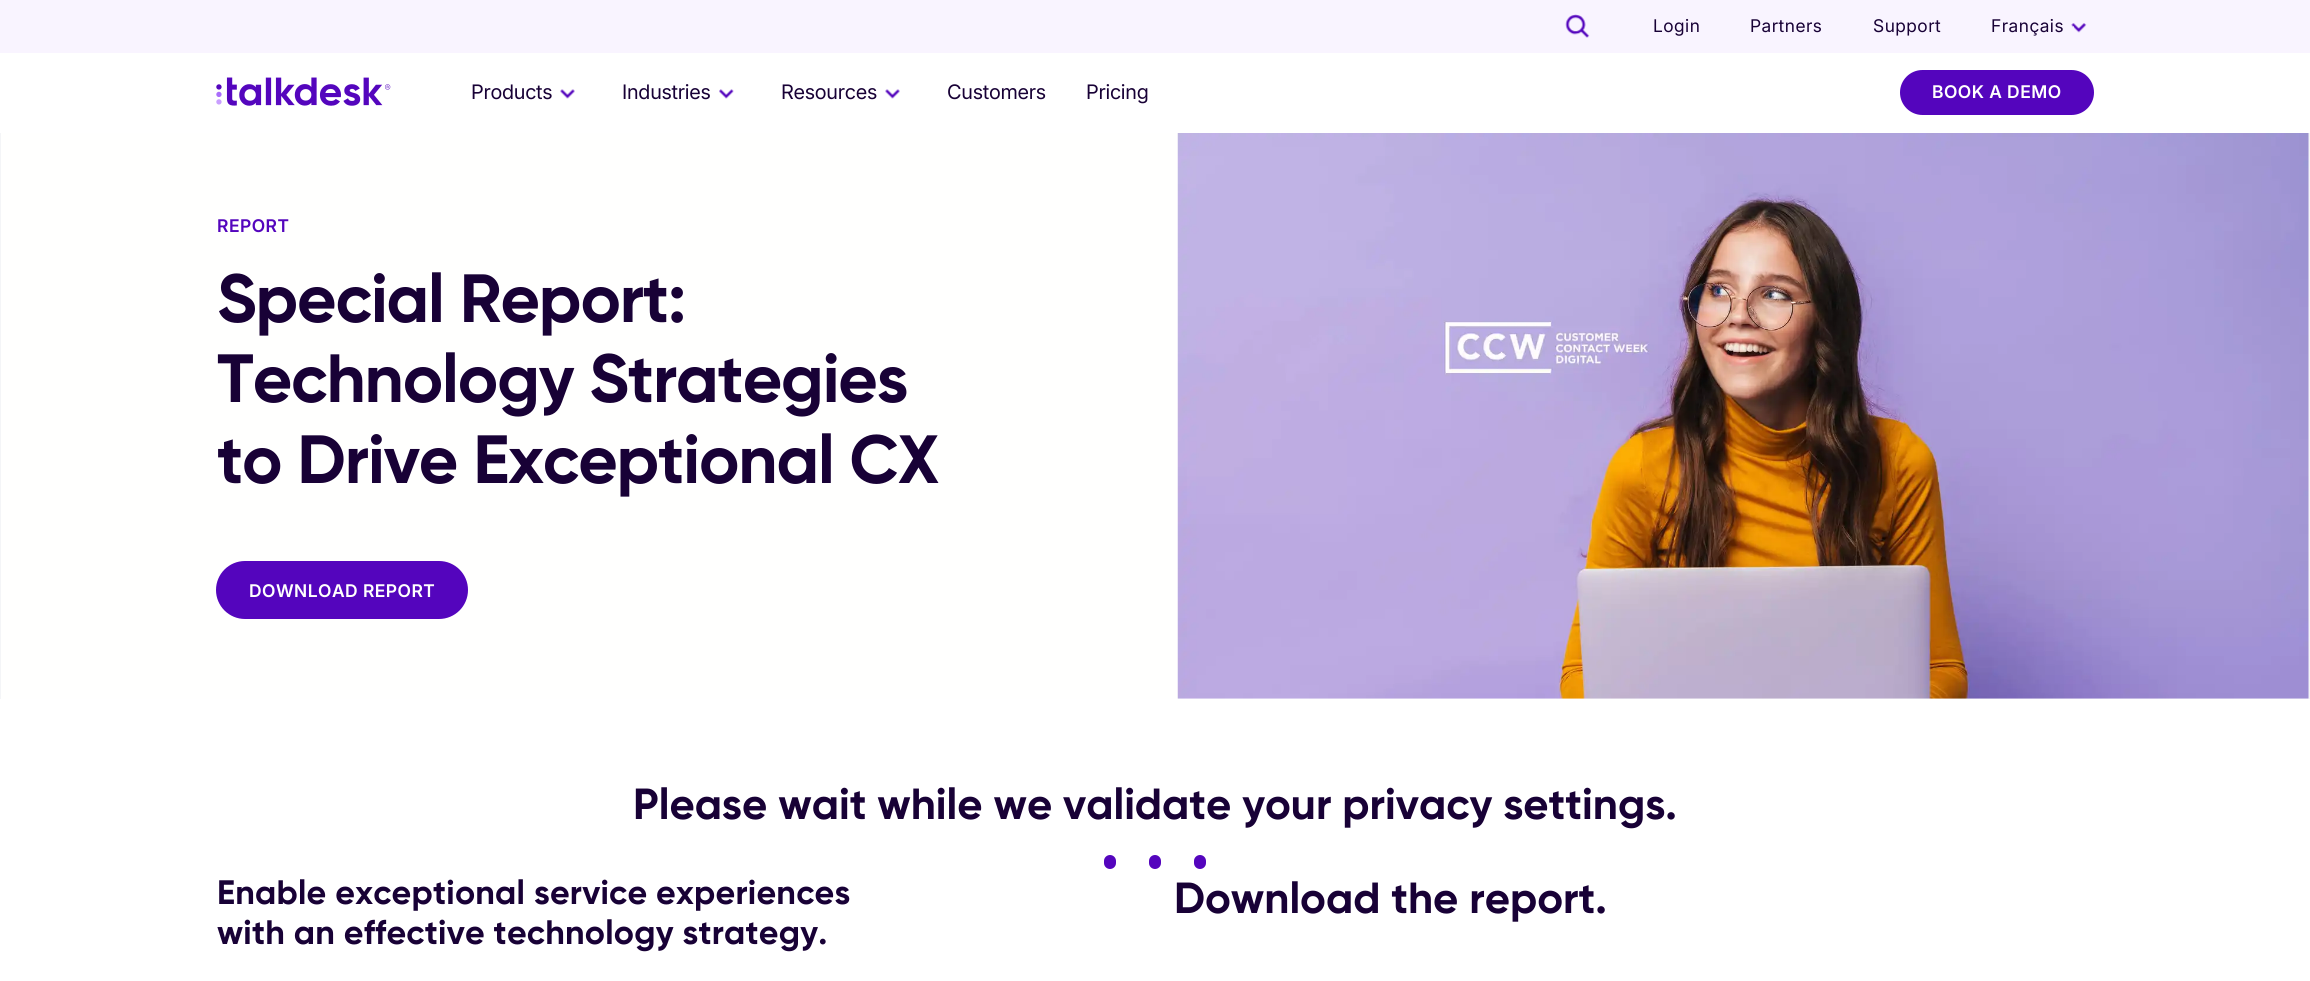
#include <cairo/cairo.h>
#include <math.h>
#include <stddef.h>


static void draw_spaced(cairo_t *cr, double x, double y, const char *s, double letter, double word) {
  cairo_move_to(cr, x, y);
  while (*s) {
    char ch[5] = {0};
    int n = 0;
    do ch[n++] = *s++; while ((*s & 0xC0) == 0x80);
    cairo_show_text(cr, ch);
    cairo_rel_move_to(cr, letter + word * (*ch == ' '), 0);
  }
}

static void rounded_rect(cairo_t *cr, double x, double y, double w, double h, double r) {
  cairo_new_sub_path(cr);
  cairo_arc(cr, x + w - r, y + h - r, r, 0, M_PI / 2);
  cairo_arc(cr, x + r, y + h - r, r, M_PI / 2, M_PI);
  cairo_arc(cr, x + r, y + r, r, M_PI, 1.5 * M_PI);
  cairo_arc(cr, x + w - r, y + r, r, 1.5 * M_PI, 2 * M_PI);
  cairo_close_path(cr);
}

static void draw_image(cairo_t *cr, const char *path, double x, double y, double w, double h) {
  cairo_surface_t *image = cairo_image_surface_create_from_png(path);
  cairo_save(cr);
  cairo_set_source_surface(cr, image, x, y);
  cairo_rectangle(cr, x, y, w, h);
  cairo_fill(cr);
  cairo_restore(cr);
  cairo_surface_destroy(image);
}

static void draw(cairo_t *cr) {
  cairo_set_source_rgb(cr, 1, 1, 1);
  cairo_paint(cr);
  cairo_set_source_rgb(cr, 249 / 255.0, 244 / 255.0, 1);
  cairo_rectangle(cr, 0, 0, 2310, 53);
  cairo_fill(cr);
  draw_image(cr, "images/1.png", 1565, 14, 25, 24);
  draw_image(cr, "images/2.png", 2071, 23, 16, 10);
  draw_image(cr, "images/3.png", 216, 77, 175, 29);
  draw_image(cr, "images/4.png", 560, 89, 15, 10);
  draw_image(cr, "images/5.png", 719, 89, 15, 10);
  draw_image(cr, "images/4.png", 885, 89, 15, 10);
  cairo_set_source_rgb(cr, 84 / 255.0, 5 / 255.0, 189 / 255.0);
  rounded_rect(cr, 1900, 70, 194, 45, 22.5);
  cairo_fill(cr);
  cairo_set_source_rgb(cr, 244 / 255.0, 245 / 255.0, 247 / 255.0);
  cairo_rectangle(cr, 0, 133, 2310, 566);
  cairo_fill(cr);
  cairo_set_source_rgb(cr, 1, 1, 254 / 255.0);
  cairo_rectangle(cr, 1, 133, 2308, 566);
  cairo_fill(cr);
  cairo_set_source_rgb(cr, 84 / 255.0, 5 / 255.0, 189 / 255.0);
  rounded_rect(cr, 216, 561, 252, 58, 29);
  cairo_fill(cr);
  draw_image(cr, "images/6.png", 1177, 133, 1132, 566);
  rounded_rect(cr, 1104, 855, 12, 14, 6);
  cairo_fill(cr);
  rounded_rect(cr, 1149, 855, 12, 14, 6);
  cairo_fill(cr);
  rounded_rect(cr, 1194, 855, 12, 14, 6);
  cairo_fill(cr);
  cairo_select_font_face(cr, "Inter", CAIRO_FONT_SLANT_NORMAL, CAIRO_FONT_WEIGHT_NORMAL);
  cairo_set_font_size(cr, 17.5);
  cairo_set_source_rgb(cr, 24 / 255.0, 1 / 255.0, 54 / 255.0);
  draw_spaced(cr, 1653, 32, "Login", 0.5, 0);
  draw_spaced(cr, 1750, 32, "Partners", 0.5, 0);
  draw_spaced(cr, 1873, 32, "Support", 0.5, 0);
  draw_spaced(cr, 1991, 32, "Français", 0.5, 0);
  cairo_set_font_size(cr, 20);
  draw_spaced(cr, 471, 99, "Products", -0.25, 0);
  draw_spaced(cr, 622, 99, "Industries", -0.25, 0);
  draw_spaced(cr, 781, 99, "Resources", -0.25, 0);
  draw_spaced(cr, 947, 99, "Customers", -0.25, 0);
  draw_spaced(cr, 1086, 99, "Pricing", -0.25, 0);
  cairo_select_font_face(cr, "Inter SemiBold", CAIRO_FONT_SLANT_NORMAL, CAIRO_FONT_WEIGHT_NORMAL);
  cairo_set_font_size(cr, 17.5);
  cairo_set_source_rgb(cr, 1, 1, 254 / 255.0);
  draw_spaced(cr, 1932, 98, "BOOK A DEMO", 0.5, 0);
  cairo_set_source_rgb(cr, 84 / 255.0, 5 / 255.0, 189 / 255.0);
  draw_spaced(cr, 217, 232, "REPORT", 0.5, 0);
  cairo_select_font_face(cr, "Gilroy", CAIRO_FONT_SLANT_NORMAL, CAIRO_FONT_WEIGHT_BOLD);
  cairo_set_font_size(cr, 68.1);
  cairo_set_source_rgb(cr, 24 / 255.0, 1 / 255.0, 54 / 255.0);
  draw_spaced(cr, 217, 322, "Special Report:", -1.1, 0);
  draw_spaced(cr, 217, 402, "Technology Strategies", -1.1, 0);
  draw_spaced(cr, 217, 483, "to Drive Exceptional CX", -1.1, 0);
  cairo_select_font_face(cr, "Inter SemiBold", CAIRO_FONT_SLANT_NORMAL, CAIRO_FONT_WEIGHT_NORMAL);
  cairo_set_font_size(cr, 17.5);
  cairo_set_source_rgb(cr, 1, 1, 254 / 255.0);
  draw_spaced(cr, 249, 597, "DOWNLOAD REPORT", 0.5, 0);
  cairo_select_font_face(cr, "Gilroy", CAIRO_FONT_SLANT_NORMAL, CAIRO_FONT_WEIGHT_BOLD);
  cairo_set_font_size(cr, 43.5);
  cairo_set_source_rgb(cr, 24 / 255.0, 1 / 255.0, 54 / 255.0);
  cairo_move_to(cr, 633, 819);
  cairo_show_text(cr, "Please wait while we validate your privacy settings.");
  cairo_set_font_size(cr, 33.9);
  draw_spaced(cr, 217, 904, "Enable exceptional service experiences", 0.25, 0);
  draw_spaced(cr, 217, 944, "with an effective technology strategy.", 0.25, 0);
  cairo_set_font_size(cr, 43.5);
  cairo_move_to(cr, 1174, 913);
  cairo_show_text(cr, "Download the report.");
}

int main(void) {
  cairo_surface_t *surface = cairo_image_surface_create(CAIRO_FORMAT_RGB24, 2310, 981);
  cairo_t *cr = cairo_create(surface);
  cairo_font_options_t *options = cairo_font_options_create();
  cairo_font_options_set_hint_metrics(options, CAIRO_HINT_METRICS_OFF);
  cairo_font_options_set_hint_style(options, CAIRO_HINT_STYLE_NONE);
  cairo_set_font_options(cr, options);
  cairo_set_miter_limit(cr, 4);
  draw(cr);
  cairo_surface_write_to_png(surface, "out.png");
  cairo_font_options_destroy(options);
  cairo_destroy(cr);
  cairo_surface_destroy(surface);
  return 0;
}
